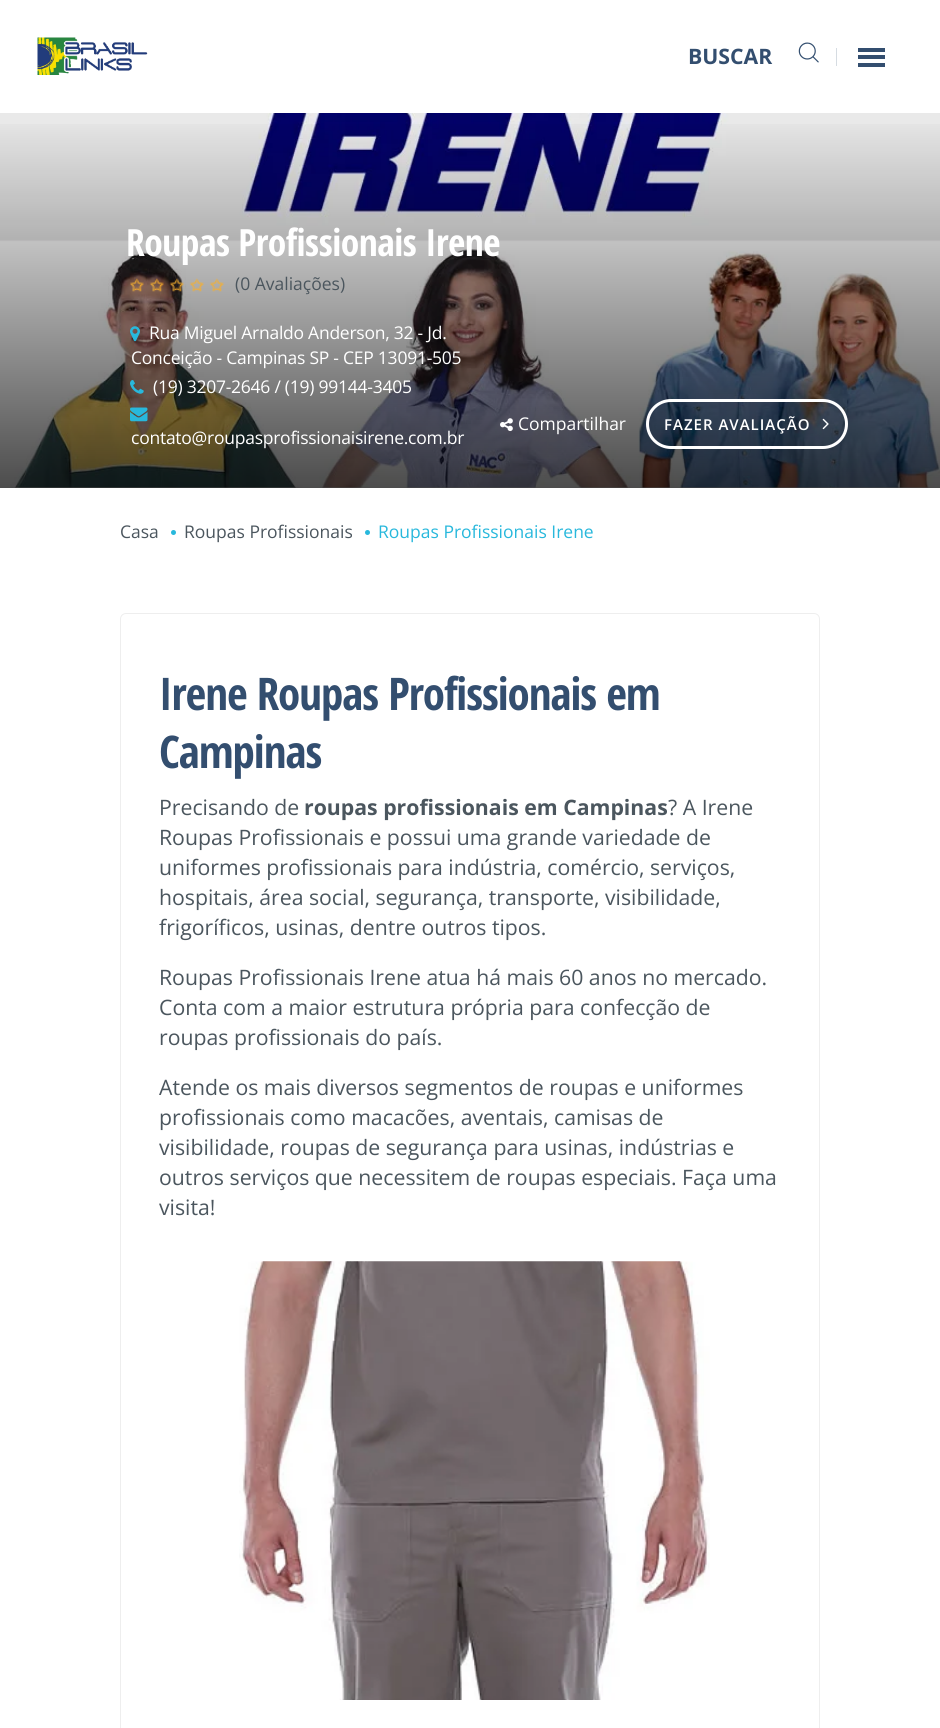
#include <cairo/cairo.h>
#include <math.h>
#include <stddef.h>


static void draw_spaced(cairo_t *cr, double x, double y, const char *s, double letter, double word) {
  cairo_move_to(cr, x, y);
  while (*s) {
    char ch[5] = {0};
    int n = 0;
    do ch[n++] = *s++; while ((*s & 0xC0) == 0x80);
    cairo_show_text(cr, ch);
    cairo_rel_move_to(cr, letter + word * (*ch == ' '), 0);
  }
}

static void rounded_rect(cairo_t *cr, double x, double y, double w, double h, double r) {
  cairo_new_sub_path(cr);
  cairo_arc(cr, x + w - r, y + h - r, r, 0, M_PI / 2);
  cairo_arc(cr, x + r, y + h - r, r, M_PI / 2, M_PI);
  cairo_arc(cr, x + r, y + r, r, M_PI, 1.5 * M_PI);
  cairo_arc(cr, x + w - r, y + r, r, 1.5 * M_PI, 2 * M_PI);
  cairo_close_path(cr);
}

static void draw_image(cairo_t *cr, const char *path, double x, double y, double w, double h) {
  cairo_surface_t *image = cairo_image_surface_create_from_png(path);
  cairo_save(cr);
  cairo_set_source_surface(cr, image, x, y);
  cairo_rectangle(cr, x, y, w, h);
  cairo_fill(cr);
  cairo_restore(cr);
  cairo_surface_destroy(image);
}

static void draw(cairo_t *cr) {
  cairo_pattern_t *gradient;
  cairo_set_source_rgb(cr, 1, 1, 1);
  cairo_paint(cr);
  draw_image(cr, "images/1.png", 37, 37, 111, 38);
  draw_image(cr, "images/2.png", 798, 42, 21, 21);
  cairo_set_source_rgb(cr, 214 / 255.0, 220 / 255.0, 226 / 255.0);
  cairo_rectangle(cr, 836, 48, 1, 18);
  cairo_fill(cr);
  cairo_set_source_rgb(cr, 51 / 255.0, 78 / 255.0, 111 / 255.0);
  cairo_rectangle(cr, 858, 55, 27, 4);
  cairo_fill(cr);
  cairo_rectangle(cr, 858, 48, 27, 4);
  cairo_fill(cr);
  cairo_rectangle(cr, 858, 63, 27, 4);
  cairo_fill(cr);
  draw_image(cr, "images/3.png", 0, 113, 940, 375);
  gradient = cairo_pattern_create_linear(470, 112, 470, 488);
  cairo_pattern_add_color_stop_rgba(gradient, 0, 0, 0, 0, 0);
  cairo_pattern_add_color_stop_rgba(gradient, 1, 0, 0, 0, 0.7);
  cairo_set_source(cr, gradient);
  cairo_pattern_destroy(gradient);
  cairo_rectangle(cr, 0, 124, 940, 364);
  cairo_fill(cr);
  draw_image(cr, "images/4.png", 130, 278, 100, 14);
  draw_image(cr, "images/5.png", 130, 326, 10, 16);
  draw_image(cr, "images/6.png", 130, 380, 14, 14);
  draw_image(cr, "images/7.png", 130, 407, 18, 15);
  draw_image(cr, "images/8.png", 500, 418, 13, 14);
  rounded_rect(cr, 647.5, 400.5, 199, 47, 23.5);
  cairo_set_source_rgb(cr, 1, 1, 1);
  cairo_set_line_width(cr, 3);
  cairo_stroke(cr);
  draw_image(cr, "images/9.png", 822, 418, 7, 12);
  cairo_set_source_rgb(cr, 40 / 255.0, 184 / 255.0, 220 / 255.0);
  cairo_arc(cr, 173.5, 532.5, 2.5, 0, 2 * M_PI);
  cairo_fill(cr);
  cairo_arc(cr, 367.5, 532.5, 2.5, 0, 2 * M_PI);
  cairo_fill(cr);
  rounded_rect(cr, 120.5, 613.5, 699, 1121, 5.5);
  cairo_set_source_rgb(cr, 238 / 255.0, 238 / 255.0, 238 / 255.0);
  cairo_set_line_width(cr, 1);
  cairo_stroke(cr);
  draw_image(cr, "images/10.png", 239, 1261, 471, 439);
  cairo_select_font_face(cr, "Open Sans", CAIRO_FONT_SLANT_NORMAL, CAIRO_FONT_WEIGHT_BOLD);
  cairo_set_font_size(cr, 21.25);
  cairo_set_source_rgb(cr, 51 / 255.0, 78 / 255.0, 111 / 255.0);
  cairo_move_to(cr, 688, 64);
  cairo_show_text(cr, "BUSCAR");
  cairo_select_font_face(cr, "Open Sans Condensed", CAIRO_FONT_SLANT_NORMAL, CAIRO_FONT_WEIGHT_BOLD);
  cairo_set_font_size(cr, 37.5);
  cairo_set_source_rgb(cr, 1, 1, 1);
  draw_spaced(cr, 126, 256, "Roupas Profissionais Irene", -0.5, 0);
  cairo_select_font_face(cr, "Open Sans", CAIRO_FONT_SLANT_NORMAL, CAIRO_FONT_WEIGHT_NORMAL);
  cairo_set_font_size(cr, 17.5);
  cairo_set_source_rgb(cr, 75 / 255.0, 86 / 255.0, 94 / 255.0);
  cairo_move_to(cr, 235, 290);
  cairo_show_text(cr, "(0 Avaliações)");
  cairo_set_source_rgb(cr, 1, 1, 1);
  draw_spaced(cr, 149, 339, "Rua Miguel Arnaldo Anderson, 32 - Jd.", -0.25, 0);
  draw_spaced(cr, 131, 364, "Conceição - Campinas SP - CEP 13091-505", -0.25, 0);
  draw_spaced(cr, 153, 393, "(19) 3207-2646 / (19) 99144-3405", -0.25, 0);
  draw_spaced(cr, 131, 444, "contato@roupasprofissionaisirene.com.br", -0.25, 0);
  cairo_move_to(cr, 518, 430);
  cairo_show_text(cr, "Compartilhar");
  cairo_select_font_face(cr, "Open Sans SemiBold", CAIRO_FONT_SLANT_NORMAL, CAIRO_FONT_WEIGHT_NORMAL);
  cairo_set_font_size(cr, 15);
  draw_spaced(cr, 664, 430, "FAZER AVALIAÇÃO", 1, 0);
  cairo_select_font_face(cr, "Open Sans", CAIRO_FONT_SLANT_NORMAL, CAIRO_FONT_WEIGHT_NORMAL);
  cairo_set_font_size(cr, 17.5);
  cairo_set_source_rgb(cr, 75 / 255.0, 86 / 255.0, 94 / 255.0);
  cairo_move_to(cr, 120, 538);
  cairo_show_text(cr, "Casa");
  cairo_move_to(cr, 184, 538);
  cairo_show_text(cr, "Roupas Profissionais");
  cairo_set_source_rgb(cr, 40 / 255.0, 184 / 255.0, 220 / 255.0);
  cairo_move_to(cr, 378, 538);
  cairo_show_text(cr, "Roupas Profissionais Irene");
  cairo_select_font_face(cr, "Open Sans Condensed", CAIRO_FONT_SLANT_NORMAL, CAIRO_FONT_WEIGHT_BOLD);
  cairo_set_font_size(cr, 45);
  cairo_set_source_rgb(cr, 51 / 255.0, 78 / 255.0, 111 / 255.0);
  draw_spaced(cr, 159, 710, "Irene Roupas Profissionais em", -1.05, 0);
  draw_spaced(cr, 159, 768, "Campinas", -1.05, 0);
  cairo_select_font_face(cr, "Open Sans", CAIRO_FONT_SLANT_NORMAL, CAIRO_FONT_WEIGHT_NORMAL);
  cairo_set_font_size(cr, 21.25);
  cairo_set_source_rgb(cr, 75 / 255.0, 86 / 255.0, 94 / 255.0);
  cairo_move_to(cr, 159, 815);
  cairo_show_text(cr, "Precisando de");
  cairo_select_font_face(cr, "Open Sans", CAIRO_FONT_SLANT_NORMAL, CAIRO_FONT_WEIGHT_BOLD);
  cairo_move_to(cr, 304, 815);
  cairo_show_text(cr, "roupas profissionais em Campinas");
  cairo_select_font_face(cr, "Open Sans", CAIRO_FONT_SLANT_NORMAL, CAIRO_FONT_WEIGHT_NORMAL);
  cairo_move_to(cr, 668, 815);
  cairo_show_text(cr, "? A Irene");
  cairo_move_to(cr, 159, 845);
  cairo_show_text(cr, "Roupas Profissionais e possui uma grande variedade de");
  cairo_move_to(cr, 159, 875);
  cairo_show_text(cr, "uniformes profissionais para indústria, comércio, serviços,");
  cairo_move_to(cr, 159, 905);
  cairo_show_text(cr, "hospitais, área social, segurança, transporte, visibilidade,");
  cairo_move_to(cr, 159, 935);
  cairo_show_text(cr, "frigoríficos, usinas, dentre outros tipos.");
  cairo_move_to(cr, 159, 985);
  cairo_show_text(cr, "Roupas Profissionais Irene atua há mais 60 anos no mercado.");
  cairo_move_to(cr, 159, 1015);
  cairo_show_text(cr, "Conta com a maior estrutura própria para confecção de");
  cairo_move_to(cr, 159, 1045);
  cairo_show_text(cr, "roupas profissionais do país.");
  cairo_move_to(cr, 159, 1095);
  cairo_show_text(cr, "Atende os mais diversos segmentos de roupas e uniformes");
  cairo_move_to(cr, 159, 1125);
  cairo_show_text(cr, "profissionais como macacões, aventais, camisas de");
  cairo_move_to(cr, 159, 1155);
  cairo_show_text(cr, "visibilidade, roupas de segurança para usinas, indústrias e");
  cairo_move_to(cr, 159, 1185);
  cairo_show_text(cr, "outros serviços que necessitem de roupas especiais. Faça uma");
  cairo_move_to(cr, 159, 1215);
  cairo_show_text(cr, "visita!");
}

int main(void) {
  cairo_surface_t *surface = cairo_image_surface_create(CAIRO_FORMAT_RGB24, 940, 1728);
  cairo_t *cr = cairo_create(surface);
  cairo_font_options_t *options = cairo_font_options_create();
  cairo_font_options_set_hint_metrics(options, CAIRO_HINT_METRICS_OFF);
  cairo_font_options_set_hint_style(options, CAIRO_HINT_STYLE_NONE);
  cairo_set_font_options(cr, options);
  cairo_set_miter_limit(cr, 4);
  draw(cr);
  cairo_surface_write_to_png(surface, "out.png");
  cairo_font_options_destroy(options);
  cairo_destroy(cr);
  cairo_surface_destroy(surface);
  return 0;
}
